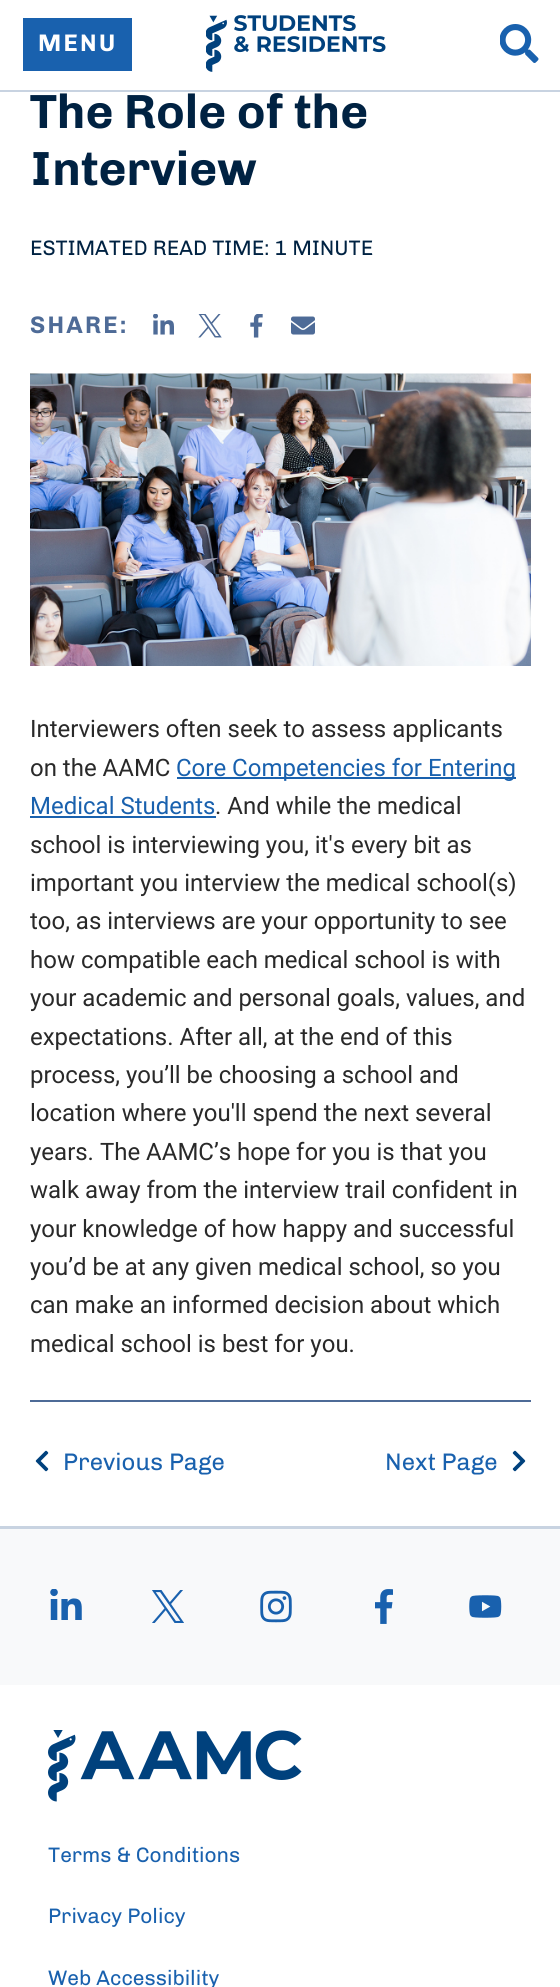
#include <cairo/cairo.h>
#include <math.h>
#include <stddef.h>


static void draw_spaced(cairo_t *cr, double x, double y, const char *s, double letter, double word) {
  cairo_move_to(cr, x, y);
  while (*s) {
    char ch[5] = {0};
    int n = 0;
    do ch[n++] = *s++; while ((*s & 0xC0) == 0x80);
    cairo_show_text(cr, ch);
    cairo_rel_move_to(cr, letter + word * (*ch == ' '), 0);
  }
}

static void draw_image(cairo_t *cr, const char *path, double x, double y, double w, double h) {
  cairo_surface_t *image = cairo_image_surface_create_from_png(path);
  cairo_save(cr);
  cairo_set_source_surface(cr, image, x, y);
  cairo_rectangle(cr, x, y, w, h);
  cairo_fill(cr);
  cairo_restore(cr);
  cairo_surface_destroy(image);
}

static void draw(cairo_t *cr) {
  cairo_set_source_rgb(cr, 1, 1, 1);
  cairo_paint(cr);
  cairo_set_source_rgb(cr, 200 / 255.0, 211 / 255.0, 225 / 255.0);
  cairo_rectangle(cr, 0, 90, 560, 2);
  cairo_fill(cr);
  cairo_set_source_rgb(cr, 25 / 255.0, 97 / 255.0, 174 / 255.0);
  cairo_rectangle(cr, 23, 18, 109, 53);
  cairo_fill(cr);
  draw_image(cr, "images/1.png", 206, 15, 180, 57);
  draw_image(cr, "images/2.png", 500, 24, 39, 39);
  draw_image(cr, "images/3.png", 153, 314, 21, 21);
  draw_image(cr, "images/4.png", 198, 314, 24, 24);
  draw_image(cr, "images/5.png", 250, 314, 13, 24);
  draw_image(cr, "images/6.png", 291, 316, 24, 19);
  draw_image(cr, "images/7.png", 30, 373, 501, 293);
  cairo_rectangle(cr, 177, 777, 339, 2);
  cairo_fill(cr);
  cairo_rectangle(cr, 30, 816, 186, 2);
  cairo_fill(cr);
  cairo_set_source_rgb(cr, 78 / 255.0, 107 / 255.0, 151 / 255.0);
  cairo_rectangle(cr, 30, 1400, 501, 2);
  cairo_fill(cr);
  draw_image(cr, "images/8.png", 35, 1450, 14, 22);
  draw_image(cr, "images/9.png", 512, 1450, 14, 22);
  cairo_set_source_rgb(cr, 200 / 255.0, 211 / 255.0, 225 / 255.0);
  cairo_rectangle(cr, 0, 1526, 560, 3);
  cairo_fill(cr);
  cairo_set_source_rgb(cr, 248 / 255.0, 249 / 255.0, 250 / 255.0);
  cairo_rectangle(cr, 0, 1529, 560, 156);
  cairo_fill(cr);
  draw_image(cr, "images/10.png", 50, 1589, 32, 31);
  draw_image(cr, "images/11.png", 152, 1590, 32, 33);
  draw_image(cr, "images/12.png", 260, 1590, 32, 33);
  draw_image(cr, "images/13.png", 375, 1589, 18, 35);
  draw_image(cr, "images/14.png", 469, 1595, 33, 23);
  draw_image(cr, "images/15.png", 48, 1730, 254, 72);
  cairo_select_font_face(cr, "Chivo", CAIRO_FONT_SLANT_NORMAL, CAIRO_FONT_WEIGHT_BOLD);
  cairo_set_font_size(cr, 24);
  cairo_set_source_rgb(cr, 1, 1, 1);
  draw_spaced(cr, 38, 51, "MENU", 2.25, 0);
  cairo_set_font_size(cr, 48);
  cairo_set_source_rgb(cr, 0, 34 / 255.0, 66 / 255.0);
  cairo_move_to(cr, 30, 128);
  cairo_show_text(cr, "The Role of the");
  cairo_move_to(cr, 30, 185);
  cairo_show_text(cr, "Interview");
  cairo_select_font_face(cr, "Chivo", CAIRO_FONT_SLANT_NORMAL, CAIRO_FONT_WEIGHT_NORMAL);
  cairo_set_font_size(cr, 21);
  cairo_move_to(cr, 30, 255);
  cairo_show_text(cr, "ESTIMATED READ TIME: 1 MINUTE");
  cairo_select_font_face(cr, "Chivo", CAIRO_FONT_SLANT_NORMAL, CAIRO_FONT_WEIGHT_BOLD);
  cairo_set_font_size(cr, 24);
  cairo_set_source_rgb(cr, 78 / 255.0, 107 / 255.0, 151 / 255.0);
  draw_spaced(cr, 30, 333, "SHARE:", 2.25, 0);
  cairo_select_font_face(cr, "Roboto", CAIRO_FONT_SLANT_NORMAL, CAIRO_FONT_WEIGHT_NORMAL);
  cairo_set_source_rgb(cr, 41 / 255.0, 41 / 255.0, 41 / 255.0);
  cairo_move_to(cr, 30, 737);
  cairo_show_text(cr, "Interviewers often seek to assess applicants");
  cairo_move_to(cr, 30, 776);
  cairo_show_text(cr, "on the AAMC");
  cairo_set_source_rgb(cr, 25 / 255.0, 97 / 255.0, 174 / 255.0);
  cairo_move_to(cr, 176, 776);
  cairo_show_text(cr, "Core Competencies for Entering");
  cairo_move_to(cr, 30, 814);
  cairo_show_text(cr, "Medical Students");
  cairo_set_source_rgb(cr, 41 / 255.0, 41 / 255.0, 41 / 255.0);
  cairo_move_to(cr, 215, 814);
  cairo_show_text(cr, ". And while the medical");
  cairo_move_to(cr, 30, 853);
  cairo_show_text(cr, "school is interviewing you, it's every bit as");
  cairo_move_to(cr, 30, 891);
  cairo_show_text(cr, "important you interview the medical school(s)");
  cairo_move_to(cr, 30, 929);
  cairo_show_text(cr, "too, as interviews are your opportunity to see");
  cairo_move_to(cr, 30, 968);
  cairo_show_text(cr, "how compatible each medical school is with");
  cairo_move_to(cr, 30, 1006);
  cairo_show_text(cr, "your academic and personal goals, values, and");
  cairo_move_to(cr, 30, 1045);
  cairo_show_text(cr, "expectations. After all, at the end of this");
  cairo_move_to(cr, 30, 1083);
  cairo_show_text(cr, "process, you’ll be choosing a school and");
  cairo_move_to(cr, 30, 1121);
  cairo_show_text(cr, "location where you'll spend the next several");
  cairo_move_to(cr, 30, 1160);
  cairo_show_text(cr, "years. The AAMC’s hope for you is that you");
  cairo_move_to(cr, 30, 1198);
  cairo_show_text(cr, "walk away from the interview trail confident in");
  cairo_move_to(cr, 30, 1237);
  cairo_show_text(cr, "your knowledge of how happy and successful");
  cairo_move_to(cr, 30, 1275);
  cairo_show_text(cr, "you’d be at any given medical school, so you");
  cairo_move_to(cr, 30, 1313);
  cairo_show_text(cr, "can make an informed decision about which");
  cairo_move_to(cr, 30, 1352);
  cairo_show_text(cr, "medical school is best for you.");
  cairo_select_font_face(cr, "Chivo", CAIRO_FONT_SLANT_NORMAL, CAIRO_FONT_WEIGHT_NORMAL);
  cairo_set_source_rgb(cr, 25 / 255.0, 97 / 255.0, 174 / 255.0);
  cairo_move_to(cr, 63, 1470);
  cairo_show_text(cr, "Previous Page");
  cairo_move_to(cr, 385, 1470);
  cairo_show_text(cr, "Next Page");
  cairo_set_font_size(cr, 21);
  cairo_move_to(cr, 48, 1862);
  cairo_show_text(cr, "Terms & Conditions");
  cairo_move_to(cr, 48, 1923);
  cairo_show_text(cr, "Privacy Policy");
  cairo_move_to(cr, 48, 1985);
  cairo_show_text(cr, "Web Accessibility");
}

int main(void) {
  cairo_surface_t *surface = cairo_image_surface_create(CAIRO_FORMAT_RGB24, 560, 1987);
  cairo_t *cr = cairo_create(surface);
  cairo_font_options_t *options = cairo_font_options_create();
  cairo_font_options_set_hint_metrics(options, CAIRO_HINT_METRICS_OFF);
  cairo_font_options_set_hint_style(options, CAIRO_HINT_STYLE_NONE);
  cairo_set_font_options(cr, options);
  cairo_set_miter_limit(cr, 4);
  draw(cr);
  cairo_surface_write_to_png(surface, "out.png");
  cairo_font_options_destroy(options);
  cairo_destroy(cr);
  cairo_surface_destroy(surface);
  return 0;
}
